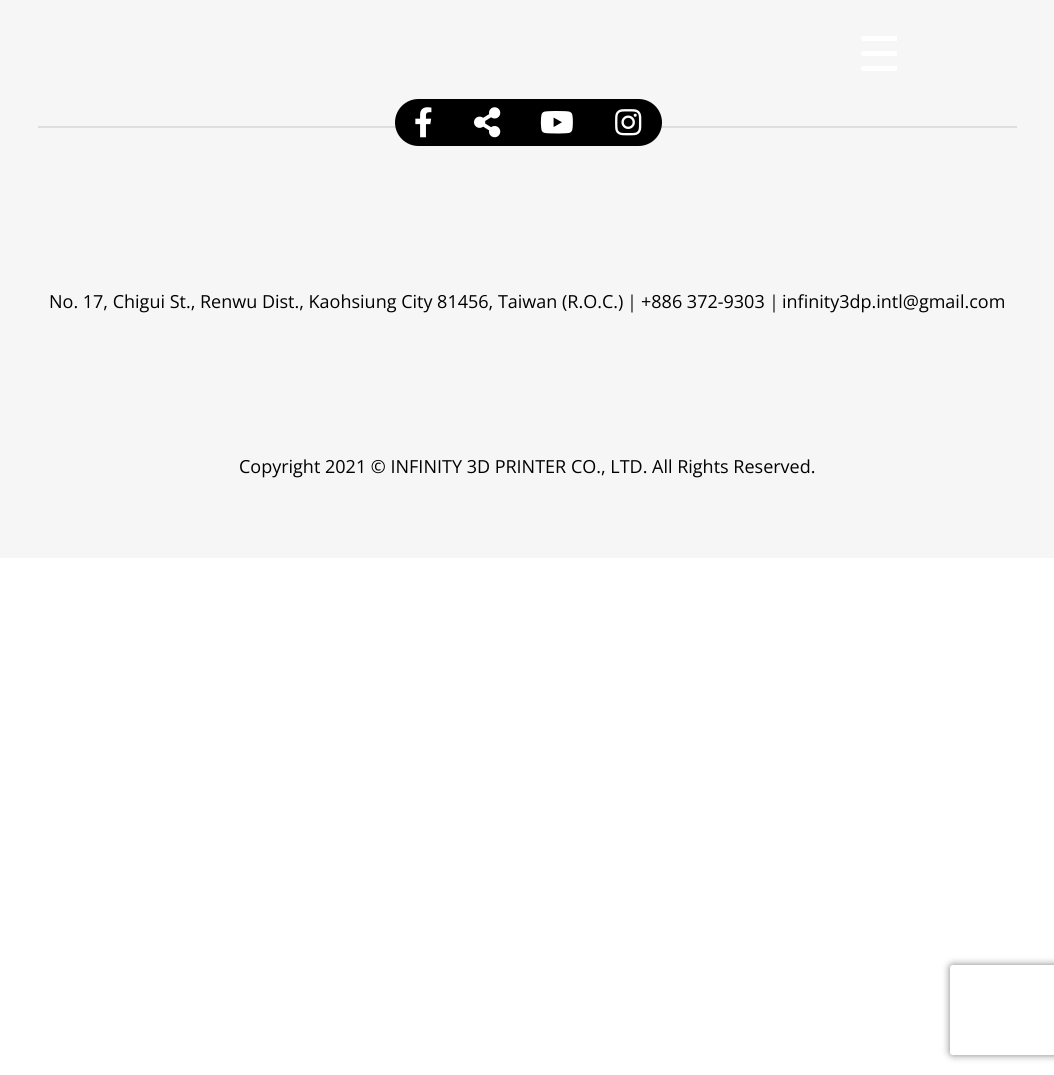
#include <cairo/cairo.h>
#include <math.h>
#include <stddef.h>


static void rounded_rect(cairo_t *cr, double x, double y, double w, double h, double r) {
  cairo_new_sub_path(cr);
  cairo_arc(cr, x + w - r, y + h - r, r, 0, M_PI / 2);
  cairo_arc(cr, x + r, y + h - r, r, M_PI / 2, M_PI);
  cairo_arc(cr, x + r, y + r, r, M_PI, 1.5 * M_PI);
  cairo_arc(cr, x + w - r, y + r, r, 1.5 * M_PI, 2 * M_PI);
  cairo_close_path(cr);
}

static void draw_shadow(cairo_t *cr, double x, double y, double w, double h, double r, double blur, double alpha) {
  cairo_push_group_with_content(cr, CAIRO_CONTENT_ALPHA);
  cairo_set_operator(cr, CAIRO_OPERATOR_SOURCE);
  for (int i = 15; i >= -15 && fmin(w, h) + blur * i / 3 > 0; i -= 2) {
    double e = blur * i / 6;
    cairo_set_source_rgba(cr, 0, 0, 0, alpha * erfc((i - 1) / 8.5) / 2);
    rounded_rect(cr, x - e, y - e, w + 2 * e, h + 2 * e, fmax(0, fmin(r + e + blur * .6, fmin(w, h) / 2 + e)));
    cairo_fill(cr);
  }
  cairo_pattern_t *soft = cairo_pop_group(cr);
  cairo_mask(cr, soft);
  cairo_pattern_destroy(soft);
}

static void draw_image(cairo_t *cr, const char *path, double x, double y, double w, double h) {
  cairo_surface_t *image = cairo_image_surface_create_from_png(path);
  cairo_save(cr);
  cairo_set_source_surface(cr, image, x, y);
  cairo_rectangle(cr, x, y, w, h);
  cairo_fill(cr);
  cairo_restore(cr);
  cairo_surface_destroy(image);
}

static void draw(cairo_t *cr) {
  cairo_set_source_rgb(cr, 1, 1, 1);
  cairo_paint(cr);
  cairo_set_source_rgb(cr, 246 / 255.0, 246 / 255.0, 246 / 255.0);
  cairo_rectangle(cr, 0, 0, 1054, 558);
  cairo_fill(cr);
  cairo_save(cr);
  rounded_rect(cr, 861, 23, 36, 58, 8);
  cairo_clip(cr);
  cairo_set_source_rgb(cr, 1, 1, 1);
  rounded_rect(cr, 861, 51, 38, 5, 2.5);
  cairo_fill(cr);
  rounded_rect(cr, 861, 36, 38, 5, 2.5);
  cairo_fill(cr);
  rounded_rect(cr, 861, 66, 38, 5, 2.5);
  cairo_fill(cr);
  cairo_restore(cr);
  cairo_set_source_rgb(cr, 222 / 255.0, 222 / 255.0, 222 / 255.0);
  cairo_rectangle(cr, 38, 126, 979, 2);
  cairo_fill(cr);
  cairo_set_source_rgb(cr, 0, 0, 0);
  rounded_rect(cr, 395, 99, 267, 47, 23.5);
  cairo_fill(cr);
  draw_image(cr, "images/1.png", 415, 107, 17, 31);
  draw_image(cr, "images/2.png", 474, 107, 27, 31);
  draw_image(cr, "images/3.png", 540, 111, 33, 23);
  draw_image(cr, "images/4.png", 615, 109, 27, 27);
  cairo_save(cr);
  cairo_set_fill_rule(cr, CAIRO_FILL_RULE_EVEN_ODD);
  cairo_new_path(cr);
  cairo_move_to(cr, 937, 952);
  cairo_line_to(cr, 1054, 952);
  cairo_line_to(cr, 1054, 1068);
  cairo_line_to(cr, 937, 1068);
  cairo_close_path(cr);
  cairo_move_to(cr, 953, 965);
  cairo_line_to(cr, 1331, 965);
  cairo_curve_to(cr, 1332.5, 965, 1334, 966.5, 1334, 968);
  cairo_line_to(cr, 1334, 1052);
  cairo_curve_to(cr, 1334, 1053.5, 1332.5, 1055, 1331, 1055);
  cairo_line_to(cr, 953, 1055);
  cairo_curve_to(cr, 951.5, 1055, 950, 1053.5, 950, 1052);
  cairo_line_to(cr, 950, 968);
  cairo_curve_to(cr, 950, 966.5, 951.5, 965, 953, 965);
  cairo_close_path(cr);
  cairo_clip(cr);
  cairo_set_source_rgb(cr, 128 / 255.0, 128 / 255.0, 128 / 255.0);
  draw_shadow(cr, 950, 965, 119, 90, 3, 4, 1);
  cairo_restore(cr);
  cairo_select_font_face(cr, "Open Sans", CAIRO_FONT_SLANT_NORMAL, CAIRO_FONT_WEIGHT_NORMAL);
  cairo_set_font_size(cr, 18);
  cairo_move_to(cr, 49, 308);
  cairo_show_text(cr, "No. 17, Chigui St., Renwu Dist., Kaohsiung City 81456, Taiwan (R.O.C.)");
  cairo_select_font_face(cr, "WenQuanYi Zen Hei Medium", CAIRO_FONT_SLANT_NORMAL, CAIRO_FONT_WEIGHT_NORMAL);
  cairo_move_to(cr, 623, 308);
  cairo_show_text(cr, "｜");
  cairo_select_font_face(cr, "Open Sans", CAIRO_FONT_SLANT_NORMAL, CAIRO_FONT_WEIGHT_NORMAL);
  cairo_move_to(cr, 641, 308);
  cairo_show_text(cr, "+886 372-9303");
  cairo_select_font_face(cr, "WenQuanYi Zen Hei Medium", CAIRO_FONT_SLANT_NORMAL, CAIRO_FONT_WEIGHT_NORMAL);
  cairo_move_to(cr, 765, 308);
  cairo_show_text(cr, "｜");
  cairo_select_font_face(cr, "Open Sans", CAIRO_FONT_SLANT_NORMAL, CAIRO_FONT_WEIGHT_NORMAL);
  cairo_move_to(cr, 782, 308);
  cairo_show_text(cr, "infinity3dp.intl@gmail.com");
  cairo_move_to(cr, 239, 473);
  cairo_show_text(cr, "Copyright 2021 © INFINITY 3D PRINTER CO., LTD. All Rights Reserved.");
}

int main(void) {
  cairo_surface_t *surface = cairo_image_surface_create(CAIRO_FORMAT_RGB24, 1054, 1075);
  cairo_t *cr = cairo_create(surface);
  cairo_font_options_t *options = cairo_font_options_create();
  cairo_font_options_set_hint_metrics(options, CAIRO_HINT_METRICS_OFF);
  cairo_font_options_set_hint_style(options, CAIRO_HINT_STYLE_NONE);
  cairo_set_font_options(cr, options);
  cairo_set_miter_limit(cr, 4);
  draw(cr);
  cairo_surface_write_to_png(surface, "out.png");
  cairo_font_options_destroy(options);
  cairo_destroy(cr);
  cairo_surface_destroy(surface);
  return 0;
}
